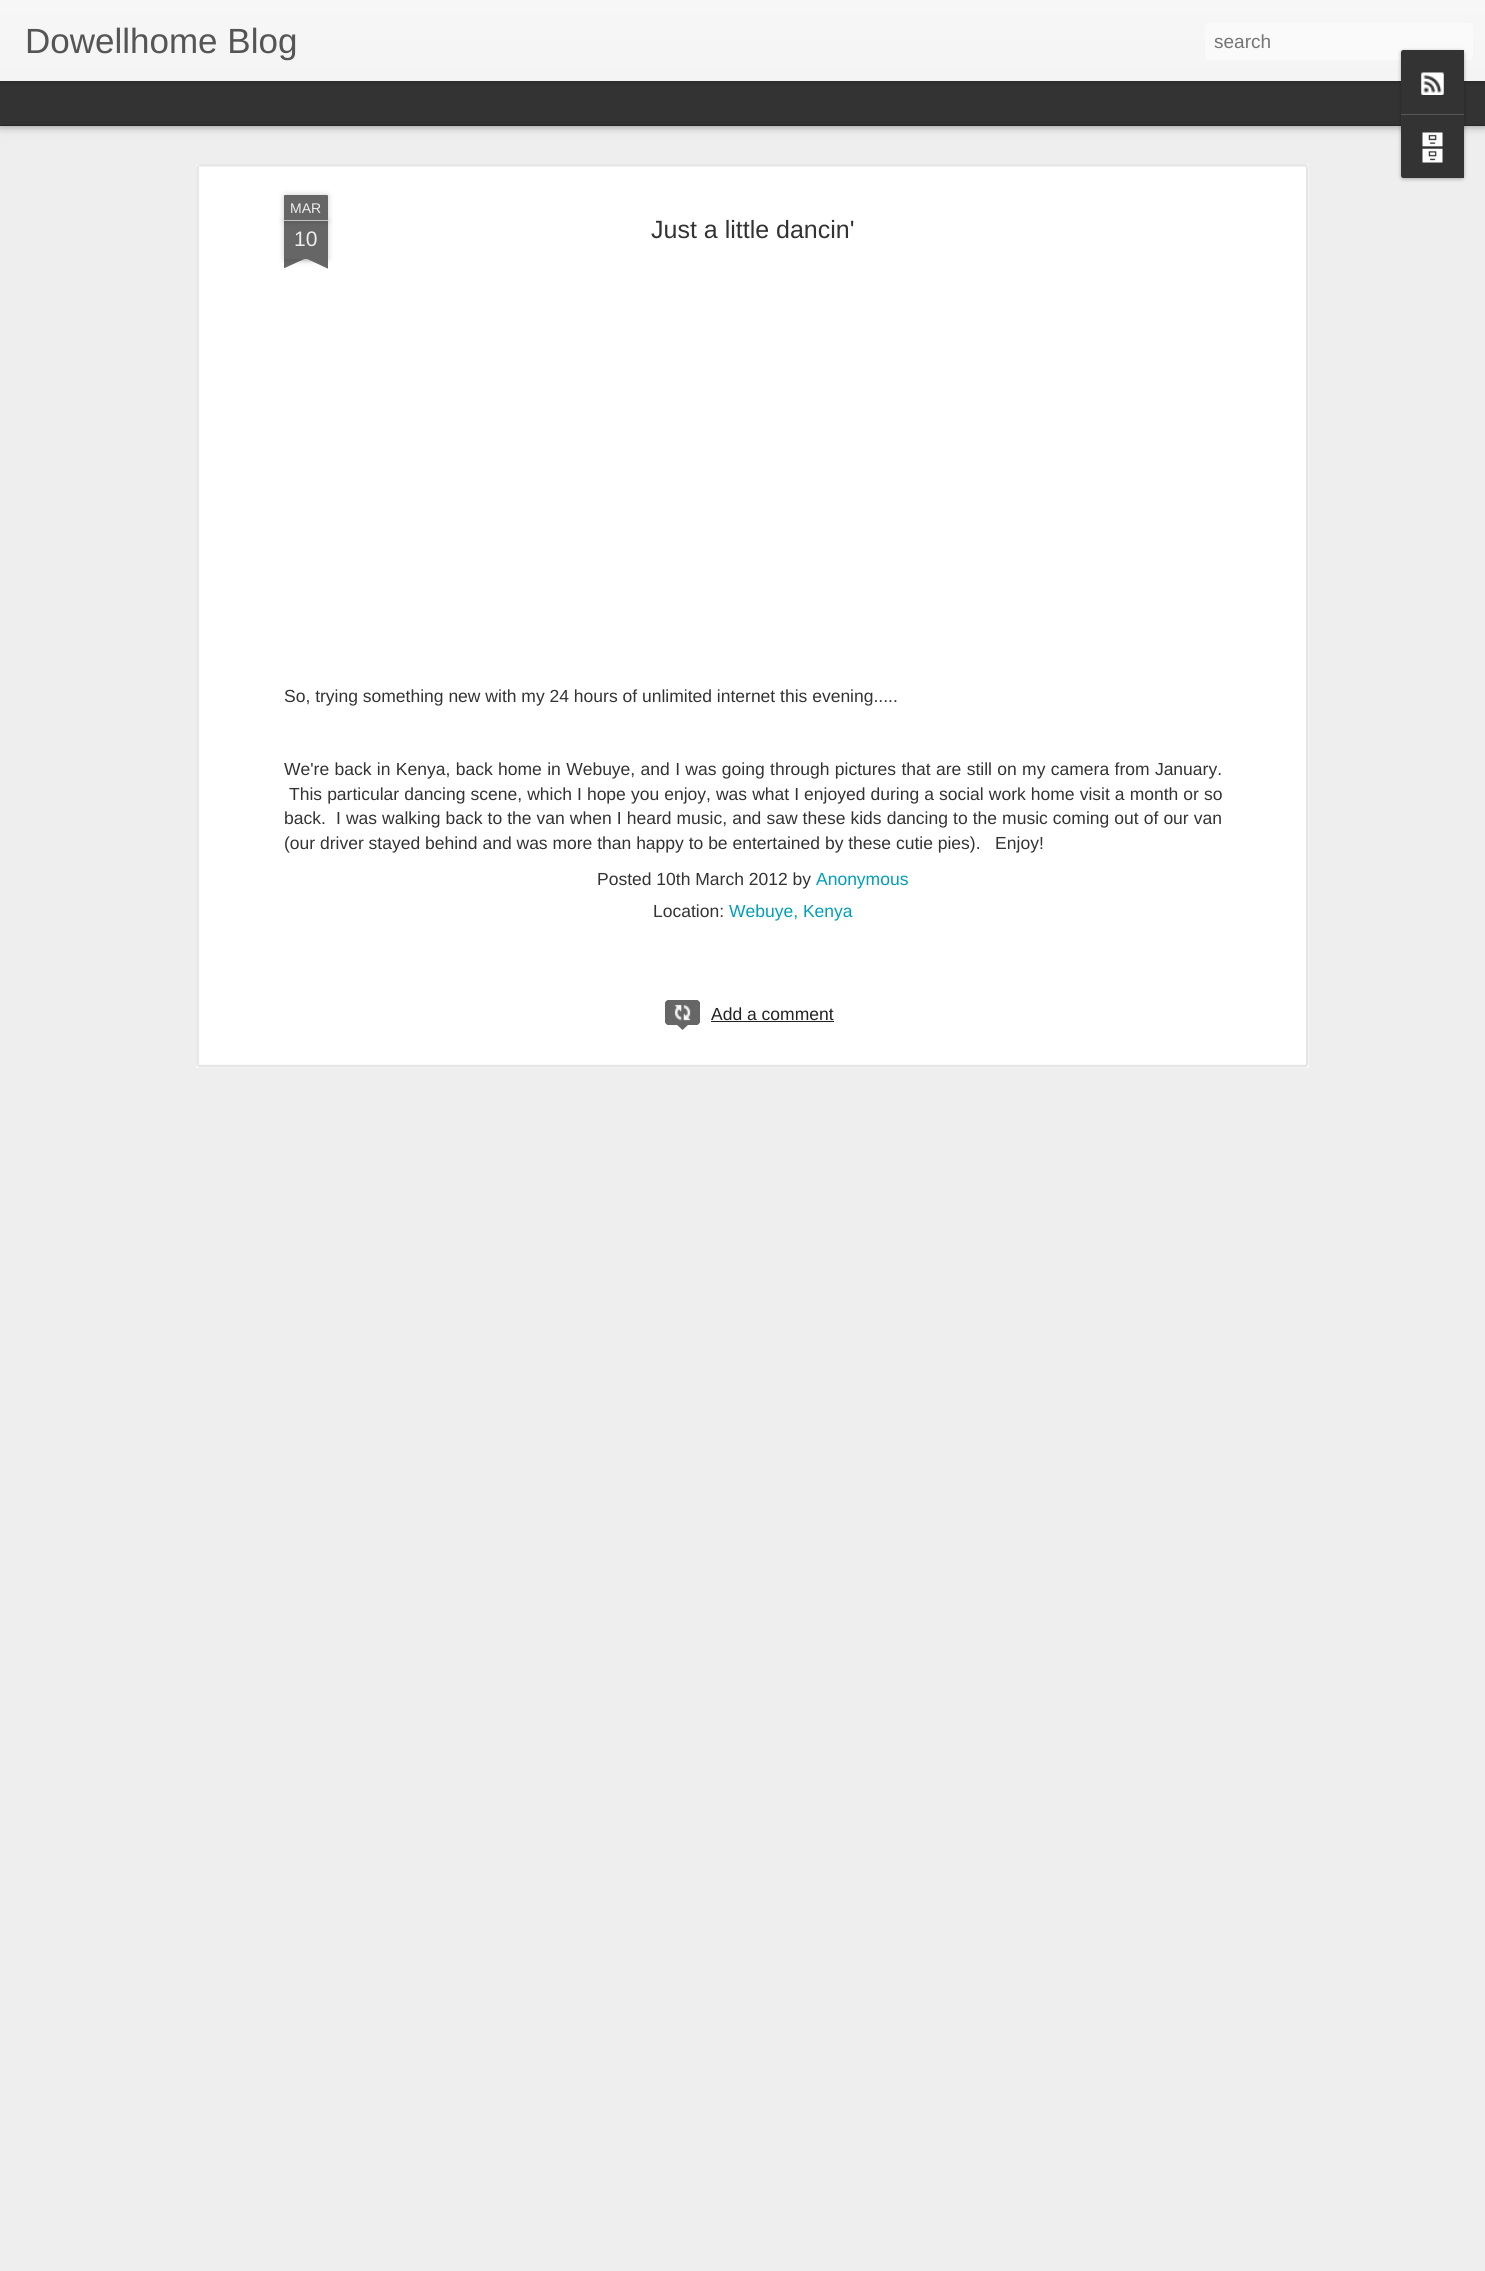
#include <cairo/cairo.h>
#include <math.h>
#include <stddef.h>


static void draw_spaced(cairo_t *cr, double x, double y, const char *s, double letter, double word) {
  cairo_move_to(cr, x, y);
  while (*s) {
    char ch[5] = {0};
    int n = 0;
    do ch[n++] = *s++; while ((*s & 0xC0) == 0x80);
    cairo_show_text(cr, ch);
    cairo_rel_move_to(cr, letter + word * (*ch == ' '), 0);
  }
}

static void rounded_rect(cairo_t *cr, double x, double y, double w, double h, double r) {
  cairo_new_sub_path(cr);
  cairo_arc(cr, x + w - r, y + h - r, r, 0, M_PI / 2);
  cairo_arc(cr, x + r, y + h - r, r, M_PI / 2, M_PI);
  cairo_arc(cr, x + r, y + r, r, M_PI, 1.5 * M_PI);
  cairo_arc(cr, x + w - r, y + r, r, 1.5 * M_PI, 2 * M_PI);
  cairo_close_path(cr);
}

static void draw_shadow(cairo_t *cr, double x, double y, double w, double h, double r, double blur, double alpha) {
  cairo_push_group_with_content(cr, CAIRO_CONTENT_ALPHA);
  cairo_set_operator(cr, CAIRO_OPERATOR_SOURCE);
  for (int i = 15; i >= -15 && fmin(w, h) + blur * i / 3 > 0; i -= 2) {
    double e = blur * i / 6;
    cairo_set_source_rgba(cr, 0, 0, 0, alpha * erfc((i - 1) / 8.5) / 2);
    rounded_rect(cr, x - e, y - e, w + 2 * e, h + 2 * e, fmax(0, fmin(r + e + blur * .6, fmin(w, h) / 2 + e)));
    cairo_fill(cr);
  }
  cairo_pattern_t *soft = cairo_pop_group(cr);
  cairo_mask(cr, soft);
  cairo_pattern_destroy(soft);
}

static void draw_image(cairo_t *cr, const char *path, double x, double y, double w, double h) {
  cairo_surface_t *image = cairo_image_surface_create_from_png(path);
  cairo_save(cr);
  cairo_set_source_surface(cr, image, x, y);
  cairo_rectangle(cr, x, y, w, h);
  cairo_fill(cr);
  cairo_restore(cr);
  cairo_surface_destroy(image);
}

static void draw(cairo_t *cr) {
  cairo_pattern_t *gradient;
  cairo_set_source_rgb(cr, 51 / 255.0, 51 / 255.0, 51 / 255.0);
  cairo_paint(cr);
  cairo_set_source_rgb(cr, 238 / 255.0, 238 / 255.0, 238 / 255.0);
  cairo_rectangle(cr, 0, 126, 1485, 2145);
  cairo_fill(cr);
  cairo_set_source_rgb(cr, 0, 0, 0);
  draw_shadow(cr, 0, 81, 1485, 44, 0, 5, 0.5);
  cairo_set_source_rgb(cr, 51 / 255.0, 51 / 255.0, 51 / 255.0);
  cairo_rectangle(cr, 0, 81, 1485, 44);
  cairo_fill(cr);
  cairo_set_source_rgb(cr, 0, 0, 0);
  draw_shadow(cr, 0, 0, 1485, 81, 0, 3, 0.3);
  gradient = cairo_pattern_create_linear(0, 0, 0, 81);
  cairo_pattern_add_color_stop_rgba(gradient, 0, 247 / 255.0, 247 / 255.0, 247 / 255.0, 1);
  cairo_pattern_add_color_stop_rgba(gradient, 1, 244 / 255.0, 244 / 255.0, 244 / 255.0, 1);
  cairo_set_source(cr, gradient);
  cairo_pattern_destroy(gradient);
  cairo_rectangle(cr, 0, 0, 1485, 81);
  cairo_fill(cr);
  cairo_set_source_rgb(cr, 250 / 255.0, 250 / 255.0, 250 / 255.0);
  rounded_rect(cr, 1205, 23, 268, 37, 4);
  cairo_fill(cr);
  cairo_set_source_rgb(cr, 0, 0, 0);
  draw_shadow(cr, 1401, 51, 63, 128, 2.5, 2, 0.3);
  cairo_set_source_rgb(cr, 51 / 255.0, 51 / 255.0, 51 / 255.0);
  cairo_new_path(cr);
  cairo_move_to(cr, 1403.5, 50);
  cairo_line_to(cr, 1464, 50);
  cairo_line_to(cr, 1464, 114);
  cairo_line_to(cr, 1401, 114);
  cairo_line_to(cr, 1401, 52.5);
  cairo_curve_to(cr, 1401, 51, 1402, 50, 1403.5, 50);
  cairo_close_path(cr);
  cairo_fill(cr);
  draw_image(cr, "images/1.png", 1421, 72, 23, 23);
  cairo_new_path(cr);
  cairo_move_to(cr, 1401, 114);
  cairo_line_to(cr, 1464, 114);
  cairo_line_to(cr, 1464, 178);
  cairo_line_to(cr, 1403.5, 178);
  cairo_curve_to(cr, 1402, 178, 1401, 177, 1401, 175.5);
  cairo_close_path(cr);
  cairo_fill(cr);
  cairo_set_source_rgb(cr, 88 / 255.0, 88 / 255.0, 88 / 255.0);
  cairo_rectangle(cr, 1401, 114, 63, 1);
  cairo_fill(cr);
  draw_image(cr, "images/2.png", 1422, 132, 21, 31);
  cairo_set_source_rgb(cr, 1, 1, 1);
  cairo_rectangle(cr, 196, 164, 1113, 904);
  cairo_fill(cr);
  draw_image(cr, "images/3.png", 196, 164, 1113, 904);
  cairo_set_source_rgb(cr, 0, 0, 0);
  draw_shadow(cr, 284, 221, 44, 38, 0, 3, 0.2);
  cairo_set_source_rgb(cr, 102 / 255.0, 102 / 255.0, 102 / 255.0);
  cairo_rectangle(cr, 284, 221, 44, 38);
  cairo_fill(cr);
  cairo_set_source_rgb(cr, 0, 0, 0);
  draw_shadow(cr, 284, 195, 44, 26, 1, 3, 0.2);
  cairo_set_source_rgb(cr, 102 / 255.0, 102 / 255.0, 102 / 255.0);
  cairo_new_path(cr);
  cairo_move_to(cr, 285, 195);
  cairo_line_to(cr, 327, 195);
  cairo_curve_to(cr, 327.5, 195, 328, 195.5, 328, 196);
  cairo_line_to(cr, 328, 221);
  cairo_line_to(cr, 284, 221);
  cairo_line_to(cr, 284, 196);
  cairo_curve_to(cr, 284, 195.5, 284.5, 195, 285, 195);
  cairo_close_path(cr);
  cairo_fill(cr);
  cairo_set_source_rgb(cr, 194 / 255.0, 194 / 255.0, 194 / 255.0);
  cairo_rectangle(cr, 284, 220, 44, 1);
  cairo_fill(cr);
  cairo_save(cr);
  cairo_rectangle(cr, 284, 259, 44, 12);
  cairo_clip(cr);
  cairo_set_source_rgb(cr, 0, 0, 0);
  draw_shadow(cr, 273, 246, 62, 13, 0, 3, 0.2);
  cairo_restore(cr);
  cairo_save(cr);
  cairo_rectangle(cr, 284, 259, 44, 12);
  cairo_clip(cr);
  cairo_set_source_rgb(cr, 102 / 255.0, 102 / 255.0, 102 / 255.0);
  cairo_new_path(cr);
  cairo_move_to(cr, 273, 260);
  cairo_line_to(cr, 329, 234);
  cairo_line_to(cr, 335, 245);
  cairo_line_to(cr, 278, 271);
  cairo_close_path(cr);
  cairo_fill(cr);
  cairo_restore(cr);
  cairo_save(cr);
  cairo_rectangle(cr, 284, 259, 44, 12);
  cairo_clip(cr);
  cairo_set_source_rgb(cr, 0, 0, 0);
  draw_shadow(cr, 276, 246, 63, 13, 0, 3, 0.2);
  cairo_restore(cr);
  cairo_save(cr);
  cairo_rectangle(cr, 284, 259, 44, 12);
  cairo_clip(cr);
  cairo_set_source_rgb(cr, 102 / 255.0, 102 / 255.0, 102 / 255.0);
  cairo_new_path(cr);
  cairo_move_to(cr, 282, 234);
  cairo_line_to(cr, 338, 260);
  cairo_line_to(cr, 333, 271);
  cairo_line_to(cr, 277, 245);
  cairo_close_path(cr);
  cairo_fill(cr);
  cairo_restore(cr);
  cairo_set_source_rgb(cr, 102 / 255.0, 102 / 255.0, 102 / 255.0);
  rounded_rect(cr, 665, 1000, 35, 25, 4);
  cairo_fill(cr);
  draw_image(cr, "images/4.png", 674, 1004, 17, 17);
  rounded_rect(cr, 665.5, 1000.5, 34, 24, 3.5);
  cairo_set_line_width(cr, 1);
  cairo_stroke(cr);
  cairo_new_path(cr);
  cairo_move_to(cr, 676, 1024);
  cairo_line_to(cr, 689, 1024);
  cairo_line_to(cr, 682.5, 1030);
  cairo_close_path(cr);
  cairo_fill(cr);
  cairo_set_source_rgb(cr, 34 / 255.0, 34 / 255.0, 34 / 255.0);
  cairo_rectangle(cr, 711, 1021, 123, 1);
  cairo_fill(cr);
  cairo_select_font_face(cr, "Liberation Sans", CAIRO_FONT_SLANT_NORMAL, CAIRO_FONT_WEIGHT_NORMAL);
  cairo_set_font_size(cr, 35);
  cairo_set_source_rgb(cr, 85 / 255.0, 85 / 255.0, 85 / 255.0);
  cairo_move_to(cr, 25, 53);
  cairo_show_text(cr, "Dowellhome Blog");
  cairo_set_font_size(cr, 19);
  cairo_set_source_rgb(cr, 117 / 255.0, 117 / 255.0, 117 / 255.0);
  cairo_move_to(cr, 1214, 48);
  cairo_show_text(cr, "search");
  cairo_set_font_size(cr, 14);
  cairo_set_source_rgb(cr, 238 / 255.0, 238 / 255.0, 238 / 255.0);
  cairo_move_to(cr, 290, 213);
  cairo_show_text(cr, "MAR");
  cairo_set_font_size(cr, 21);
  cairo_move_to(cr, 294, 246);
  cairo_show_text(cr, "10");
  cairo_set_font_size(cr, 25);
  cairo_set_source_rgb(cr, 51 / 255.0, 51 / 255.0, 51 / 255.0);
  cairo_move_to(cr, 651, 238);
  cairo_show_text(cr, "Just a little dancin'");
  cairo_set_font_size(cr, 17.5);
  cairo_move_to(cr, 284, 702);
  cairo_show_text(cr, "So, trying something new with my 24 hours of unlimited internet this evening.....");
  draw_spaced(cr, 284, 775, "We're back in Kenya, back home in Webuye, and I was going through pictures that are still on my camera from January.", 0, 0.5);
  draw_spaced(cr, 289, 800, "This particular dancing scene, which I hope you enjoy, was what I enjoyed during a social work home visit a month or so", 0, 0.2);
  draw_spaced(cr, 284, 824, "back.  I was walking back to the van when I heard music, and saw these kids dancing to the music coming out of our van", 0, 0.2);
  cairo_move_to(cr, 284, 849);
  cairo_show_text(cr, "(our driver stayed behind and was more than happy to be entertained by these cutie pies).   Enjoy!");
  cairo_move_to(cr, 597, 885);
  cairo_show_text(cr, "Posted 10th March 2012 by");
  cairo_set_source_rgb(cr, 0, 158 / 255.0, 184 / 255.0);
  cairo_move_to(cr, 816, 885);
  cairo_show_text(cr, "Anonymous");
  cairo_set_source_rgb(cr, 51 / 255.0, 51 / 255.0, 51 / 255.0);
  cairo_move_to(cr, 653, 917);
  cairo_show_text(cr, "Location:");
  cairo_set_source_rgb(cr, 0, 158 / 255.0, 184 / 255.0);
  cairo_move_to(cr, 729, 917);
  cairo_show_text(cr, "Webuye, Kenya");
  cairo_set_source_rgb(cr, 34 / 255.0, 34 / 255.0, 34 / 255.0);
  cairo_move_to(cr, 711, 1020);
  cairo_show_text(cr, "Add a comment");
}

int main(void) {
  cairo_surface_t *surface = cairo_image_surface_create(CAIRO_FORMAT_RGB24, 1485, 2271);
  cairo_t *cr = cairo_create(surface);
  cairo_font_options_t *options = cairo_font_options_create();
  cairo_font_options_set_hint_metrics(options, CAIRO_HINT_METRICS_OFF);
  cairo_font_options_set_hint_style(options, CAIRO_HINT_STYLE_NONE);
  cairo_set_font_options(cr, options);
  cairo_set_miter_limit(cr, 4);
  draw(cr);
  cairo_surface_write_to_png(surface, "out.png");
  cairo_font_options_destroy(options);
  cairo_destroy(cr);
  cairo_surface_destroy(surface);
  return 0;
}
